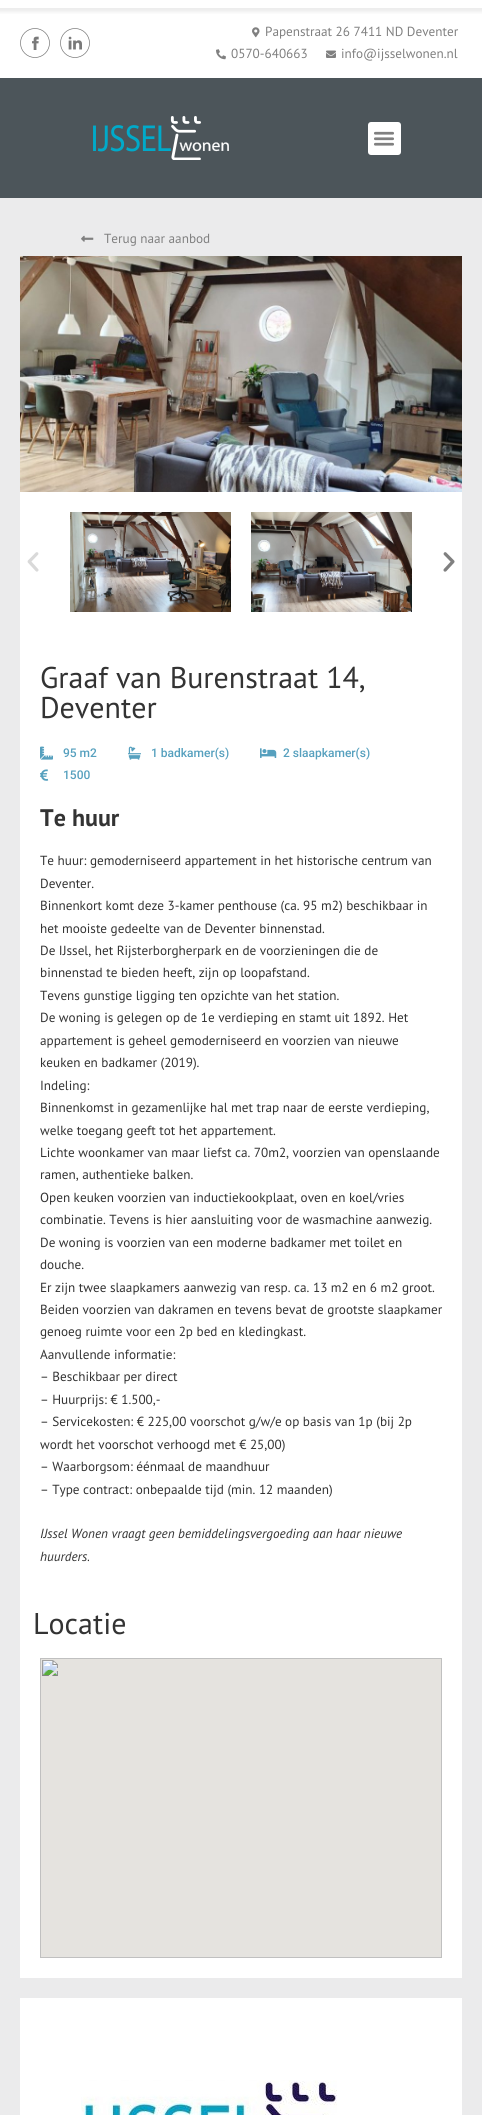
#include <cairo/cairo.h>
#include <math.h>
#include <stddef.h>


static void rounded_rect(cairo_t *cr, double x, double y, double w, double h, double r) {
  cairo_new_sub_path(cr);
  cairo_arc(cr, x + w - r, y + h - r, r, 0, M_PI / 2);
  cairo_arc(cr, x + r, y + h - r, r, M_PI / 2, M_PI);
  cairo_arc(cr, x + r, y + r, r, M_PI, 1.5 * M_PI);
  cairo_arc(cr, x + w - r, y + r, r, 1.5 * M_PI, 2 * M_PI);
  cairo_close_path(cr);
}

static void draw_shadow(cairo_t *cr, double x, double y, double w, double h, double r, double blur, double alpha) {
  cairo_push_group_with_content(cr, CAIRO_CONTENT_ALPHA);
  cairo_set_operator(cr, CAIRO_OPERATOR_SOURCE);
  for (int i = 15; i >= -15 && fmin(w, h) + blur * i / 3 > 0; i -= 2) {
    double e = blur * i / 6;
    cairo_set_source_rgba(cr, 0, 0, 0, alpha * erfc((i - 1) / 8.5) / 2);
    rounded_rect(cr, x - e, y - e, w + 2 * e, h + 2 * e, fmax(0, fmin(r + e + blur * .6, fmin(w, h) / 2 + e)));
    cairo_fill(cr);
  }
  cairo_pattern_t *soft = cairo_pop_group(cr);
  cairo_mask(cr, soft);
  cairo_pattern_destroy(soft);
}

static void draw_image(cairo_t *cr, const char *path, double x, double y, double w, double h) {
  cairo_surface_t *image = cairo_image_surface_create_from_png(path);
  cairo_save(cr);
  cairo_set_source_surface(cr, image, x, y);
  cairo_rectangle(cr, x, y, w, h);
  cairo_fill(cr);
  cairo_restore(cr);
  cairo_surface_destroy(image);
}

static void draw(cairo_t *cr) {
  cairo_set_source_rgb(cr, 1, 1, 1);
  cairo_paint(cr);
  cairo_save(cr);
  cairo_rectangle(cr, 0, 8, 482, 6);
  cairo_clip(cr);
  cairo_set_source_rgb(cr, 128 / 255.0, 128 / 255.0, 128 / 255.0);
  draw_shadow(cr, -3, -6, 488, 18, 0, 2, 0.15);
  cairo_restore(cr);
  draw_image(cr, "images/1.png", 20, 28, 30, 30);
  draw_image(cr, "images/2.png", 60, 28, 30, 30);
  draw_image(cr, "images/3.png", 252, 27, 8, 11);
  draw_image(cr, "images/4.png", 216, 49, 10, 11);
  draw_image(cr, "images/5.png", 326, 50, 10, 8);
  cairo_set_source_rgb(cr, 76 / 255.0, 85 / 255.0, 90 / 255.0);
  cairo_rectangle(cr, 0, 78, 482, 120);
  cairo_fill(cr);
  draw_image(cr, "images/6.png", 93, 116, 136, 44);
  cairo_set_source_rgb(cr, 1, 1, 1);
  rounded_rect(cr, 368, 122, 33, 33, 3);
  cairo_fill(cr);
  draw_image(cr, "images/7.png", 374, 131, 20, 15);
  cairo_set_source_rgb(cr, 235 / 255.0, 235 / 255.0, 236 / 255.0);
  cairo_rectangle(cr, 0, 198, 482, 1917);
  cairo_fill(cr);
  draw_image(cr, "images/8.png", 81, 235, 13, 7);
  cairo_set_source_rgb(cr, 1, 1, 1);
  cairo_rectangle(cr, 20, 492, 442, 1486);
  cairo_fill(cr);
  draw_image(cr, "images/9.png", 20, 256, 442, 236);
  draw_image(cr, "images/10.png", 27, 552, 12, 20);
  draw_image(cr, "images/11.png", 70, 512, 161, 100);
  draw_image(cr, "images/12.png", 251, 512, 161, 100);
  draw_image(cr, "images/13.png", 443, 552, 12, 20);
  draw_image(cr, "images/14.png", 40, 746, 13, 14);
  draw_image(cr, "images/15.png", 128, 746, 13, 14);
  draw_image(cr, "images/16.png", 260, 748, 17, 10);
  draw_image(cr, "images/17.png", 40, 769, 9, 12);
  draw_image(cr, "images/18.png", 40, 1658, 402, 300);
  cairo_rectangle(cr, 20, 1998, 442, 117);
  cairo_fill(cr);
  draw_image(cr, "images/19.png", 81, 2080, 256, 35);
  cairo_select_font_face(cr, "PT Sans", CAIRO_FONT_SLANT_NORMAL, CAIRO_FONT_WEIGHT_NORMAL);
  cairo_set_font_size(cr, 13.2);
  cairo_set_source_rgb(cr, 128 / 255.0, 128 / 255.0, 128 / 255.0);
  cairo_move_to(cr, 265, 36);
  cairo_show_text(cr, "Papenstraat 26 7411 ND Deventer");
  cairo_move_to(cr, 231, 58);
  cairo_show_text(cr, "0570-640663");
  cairo_move_to(cr, 341, 58);
  cairo_show_text(cr, "info@ijsselwonen.nl");
  cairo_move_to(cr, 104, 243);
  cairo_show_text(cr, "Terug naar aanbod");
  cairo_set_font_size(cr, 30);
  cairo_set_source_rgb(cr, 51 / 255.0, 51 / 255.0, 51 / 255.0);
  cairo_move_to(cr, 40, 688);
  cairo_show_text(cr, "Graaf van Burenstraat 14,");
  cairo_move_to(cr, 40, 718);
  cairo_show_text(cr, "Deventer");
  cairo_select_font_face(cr, "Roboto Medium", CAIRO_FONT_SLANT_NORMAL, CAIRO_FONT_WEIGHT_NORMAL);
  cairo_set_font_size(cr, 12);
  cairo_set_source_rgb(cr, 86 / 255.0, 160 / 255.0, 190 / 255.0);
  cairo_move_to(cr, 63, 757);
  cairo_show_text(cr, "95 m2");
  cairo_move_to(cr, 151, 757);
  cairo_show_text(cr, "1 badkamer(s)");
  cairo_move_to(cr, 283, 757);
  cairo_show_text(cr, "2 slaapkamer(s)");
  cairo_move_to(cr, 63, 779);
  cairo_show_text(cr, "1500");
  cairo_select_font_face(cr, "PT Sans", CAIRO_FONT_SLANT_NORMAL, CAIRO_FONT_WEIGHT_BOLD);
  cairo_set_font_size(cr, 24);
  cairo_set_source_rgb(cr, 51 / 255.0, 51 / 255.0, 51 / 255.0);
  cairo_move_to(cr, 40, 826);
  cairo_show_text(cr, "Te huur");
  cairo_select_font_face(cr, "PT Sans", CAIRO_FONT_SLANT_NORMAL, CAIRO_FONT_WEIGHT_NORMAL);
  cairo_set_font_size(cr, 13.2);
  cairo_move_to(cr, 40, 865);
  cairo_show_text(cr, "Te huur: gemoderniseerd appartement in het historische centrum van");
  cairo_move_to(cr, 40, 888);
  cairo_show_text(cr, "Deventer.");
  cairo_move_to(cr, 40, 910);
  cairo_show_text(cr, "Binnenkort komt deze 3-kamer penthouse (ca. 95 m2) beschikbaar in");
  cairo_move_to(cr, 40, 933);
  cairo_show_text(cr, "het mooiste gedeelte van de Deventer binnenstad.");
  cairo_move_to(cr, 40, 955);
  cairo_show_text(cr, "De IJssel, het Rijsterborgherpark en de voorzieningen die de");
  cairo_move_to(cr, 40, 977);
  cairo_show_text(cr, "binnenstad te bieden heeft, zijn op loopafstand.");
  cairo_move_to(cr, 40, 1000);
  cairo_show_text(cr, "Tevens gunstige ligging ten opzichte van het station.");
  cairo_move_to(cr, 40, 1022);
  cairo_show_text(cr, "De woning is gelegen op de 1e verdieping en stamt uit 1892. Het");
  cairo_move_to(cr, 40, 1045);
  cairo_show_text(cr, "appartement is geheel gemoderniseerd en voorzien van nieuwe");
  cairo_move_to(cr, 40, 1067);
  cairo_show_text(cr, "keuken en badkamer (2019).");
  cairo_move_to(cr, 40, 1090);
  cairo_show_text(cr, "Indeling:");
  cairo_move_to(cr, 40, 1112);
  cairo_show_text(cr, "Binnenkomst in gezamenlijke hal met trap naar de eerste verdieping,");
  cairo_move_to(cr, 40, 1135);
  cairo_show_text(cr, "welke toegang geeft tot het appartement.");
  cairo_move_to(cr, 40, 1157);
  cairo_show_text(cr, "Lichte woonkamer van maar liefst ca. 70m2, voorzien van openslaande");
  cairo_move_to(cr, 40, 1179);
  cairo_show_text(cr, "ramen, authentieke balken.");
  cairo_move_to(cr, 40, 1202);
  cairo_show_text(cr, "Open keuken voorzien van inductiekookplaat, oven en koel/vries");
  cairo_move_to(cr, 40, 1224);
  cairo_show_text(cr, "combinatie. Tevens is hier aansluiting voor de wasmachine aanwezig.");
  cairo_move_to(cr, 40, 1247);
  cairo_show_text(cr, "De woning is voorzien van een moderne badkamer met toilet en");
  cairo_move_to(cr, 40, 1269);
  cairo_show_text(cr, "douche.");
  cairo_move_to(cr, 40, 1292);
  cairo_show_text(cr, "Er zijn twee slaapkamers aanwezig van resp. ca. 13 m2 en 6 m2 groot.");
  cairo_move_to(cr, 40, 1314);
  cairo_show_text(cr, "Beiden voorzien van dakramen en tevens bevat de grootste slaapkamer");
  cairo_move_to(cr, 40, 1336);
  cairo_show_text(cr, "genoeg ruimte voor een 2p bed en kledingkast.");
  cairo_move_to(cr, 40, 1359);
  cairo_show_text(cr, "Aanvullende informatie:");
  cairo_move_to(cr, 40, 1381);
  cairo_show_text(cr, "– Beschikbaar per direct");
  cairo_move_to(cr, 40, 1404);
  cairo_show_text(cr, "– Huurprijs: € 1.500,-");
  cairo_move_to(cr, 40, 1426);
  cairo_show_text(cr, "– Servicekosten: € 225,00 voorschot g/w/e op basis van 1p (bij 2p");
  cairo_move_to(cr, 40, 1449);
  cairo_show_text(cr, "wordt het voorschot verhoogd met € 25,00)");
  cairo_move_to(cr, 40, 1471);
  cairo_show_text(cr, "– Waarborgsom: éénmaal de maandhuur");
  cairo_move_to(cr, 40, 1494);
  cairo_show_text(cr, "– Type contract: onbepaalde tijd (min. 12 maanden)");
  cairo_select_font_face(cr, "PT Sans", CAIRO_FONT_SLANT_ITALIC, CAIRO_FONT_WEIGHT_NORMAL);
  cairo_move_to(cr, 40, 1538);
  cairo_show_text(cr, "IJssel Wonen vraagt geen bemiddelingsvergoeding aan haar nieuwe");
  cairo_move_to(cr, 40, 1561);
  cairo_show_text(cr, "huurders.");
  cairo_select_font_face(cr, "PT Sans", CAIRO_FONT_SLANT_NORMAL, CAIRO_FONT_WEIGHT_NORMAL);
  cairo_set_font_size(cr, 30);
  cairo_move_to(cr, 33, 1634);
  cairo_show_text(cr, "Locatie");
}

int main(void) {
  cairo_surface_t *surface = cairo_image_surface_create(CAIRO_FORMAT_RGB24, 482, 2115);
  cairo_t *cr = cairo_create(surface);
  cairo_font_options_t *options = cairo_font_options_create();
  cairo_font_options_set_hint_metrics(options, CAIRO_HINT_METRICS_OFF);
  cairo_font_options_set_hint_style(options, CAIRO_HINT_STYLE_NONE);
  cairo_set_font_options(cr, options);
  cairo_set_miter_limit(cr, 4);
  draw(cr);
  cairo_surface_write_to_png(surface, "out.png");
  cairo_font_options_destroy(options);
  cairo_destroy(cr);
  cairo_surface_destroy(surface);
  return 0;
}
